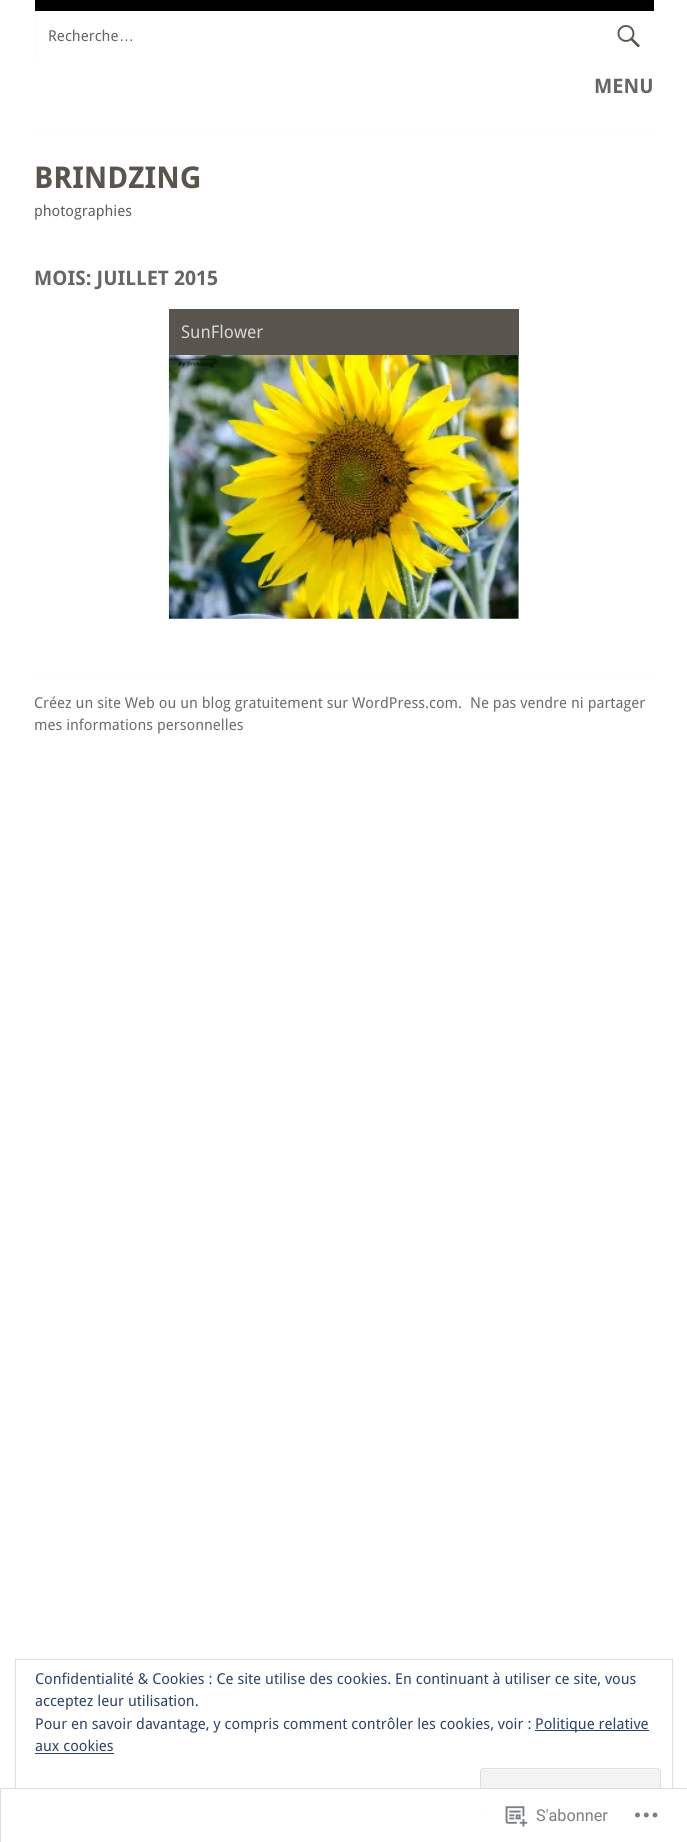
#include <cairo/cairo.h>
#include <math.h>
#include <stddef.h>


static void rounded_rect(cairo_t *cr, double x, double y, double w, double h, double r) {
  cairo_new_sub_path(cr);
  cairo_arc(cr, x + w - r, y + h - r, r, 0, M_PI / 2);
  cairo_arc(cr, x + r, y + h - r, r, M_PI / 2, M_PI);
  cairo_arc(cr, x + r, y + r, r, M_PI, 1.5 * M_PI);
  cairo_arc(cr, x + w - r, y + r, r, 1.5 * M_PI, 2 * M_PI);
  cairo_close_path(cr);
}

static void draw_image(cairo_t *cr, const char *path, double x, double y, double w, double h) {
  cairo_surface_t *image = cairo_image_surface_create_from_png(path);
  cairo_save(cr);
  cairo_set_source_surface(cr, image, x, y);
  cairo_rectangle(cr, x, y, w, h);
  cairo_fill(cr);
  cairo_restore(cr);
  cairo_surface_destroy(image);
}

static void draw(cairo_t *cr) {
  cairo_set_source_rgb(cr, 1, 1, 1);
  cairo_paint(cr);
  cairo_set_source_rgb(cr, 0, 0, 0);
  cairo_rectangle(cr, 35, 0, 619, 11);
  cairo_fill(cr);
  cairo_set_source_rgb(cr, 252 / 255.0, 252 / 255.0, 252 / 255.0);
  cairo_rectangle(cr, 35, 128, 619, 1);
  cairo_fill(cr);
  cairo_rectangle(cr, 35, 11, 1, 49);
  cairo_fill(cr);
  draw_image(cr, "images/1.png", 617, 25, 23, 23);
  cairo_set_source_rgb(cr, 89 / 255.0, 85 / 255.0, 78 / 255.0);
  cairo_rectangle(cr, 169, 309, 350, 46);
  cairo_fill(cr);
  draw_image(cr, "images/2.png", 168, 355, 351, 264);
  cairo_set_source_rgb(cr, 252 / 255.0, 252 / 255.0, 252 / 255.0);
  cairo_rectangle(cr, 35, 679, 619, 1);
  cairo_fill(cr);
  cairo_rectangle(cr, 15.5, 1659.5, 657, 168);
  cairo_set_source_rgb(cr, 222 / 255.0, 222 / 255.0, 222 / 255.0);
  cairo_set_line_width(cr, 1);
  cairo_stroke(cr);
  cairo_set_source_rgb(cr, 46 / 255.0, 68 / 255.0, 103 / 255.0);
  cairo_rectangle(cr, 535, 1730, 114, 1);
  cairo_fill(cr);
  cairo_rectangle(cr, 35, 1753, 79, 1);
  cairo_fill(cr);
  cairo_set_source_rgb(cr, 243 / 255.0, 243 / 255.0, 243 / 255.0);
  rounded_rect(cr, 480, 1768, 181, 48, 4);
  cairo_fill(cr);
  cairo_set_source_rgb(cr, 249 / 255.0, 249 / 255.0, 249 / 255.0);
  cairo_new_path(cr);
  cairo_move_to(cr, 484, 1770);
  cairo_line_to(cr, 658, 1770);
  cairo_curve_to(cr, 659, 1770, 660, 1771, 660, 1772);
  cairo_curve_to(cr, 660, 1770, 659, 1769, 658, 1769);
  cairo_line_to(cr, 484, 1769);
  cairo_curve_to(cr, 482, 1769, 481, 1770, 481, 1772);
  cairo_curve_to(cr, 481, 1771, 482, 1770, 484, 1770);
  cairo_close_path(cr);
  cairo_fill(cr);
  rounded_rect(cr, 480.5, 1768.5, 180, 47, 3.5);
  cairo_set_source_rgb(cr, 222 / 255.0, 222 / 255.0, 222 / 255.0);
  cairo_stroke(cr);
  cairo_set_source_rgba(cr, 1, 1, 1, 0.98);
  cairo_rectangle(cr, 15, 1788, 658, 40);
  cairo_fill(cr);
  cairo_rectangle(cr, 0.5, 1788.5, 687, 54);
  cairo_set_source_rgba(cr, 220 / 255.0, 220 / 255.0, 222 / 255.0, 0.98);
  cairo_stroke(cr);
  draw_image(cr, "images/3.png", 505, 1806, 23, 21);
  draw_image(cr, "images/4.png", 635, 1812, 23, 6);
  cairo_select_font_face(cr, "Droid Sans", CAIRO_FONT_SLANT_NORMAL, CAIRO_FONT_WEIGHT_NORMAL);
  cairo_set_font_size(cr, 15);
  cairo_set_source_rgb(cr, 102 / 255.0, 102 / 255.0, 102 / 255.0);
  cairo_move_to(cr, 48, 41);
  cairo_show_text(cr, "Recherche");
  cairo_select_font_face(cr, "Liberation Sans", CAIRO_FONT_SLANT_NORMAL, CAIRO_FONT_WEIGHT_NORMAL);
  cairo_move_to(cr, 119, 41);
  cairo_show_text(cr, "…");
  cairo_select_font_face(cr, "Droid Sans", CAIRO_FONT_SLANT_NORMAL, CAIRO_FONT_WEIGHT_BOLD);
  cairo_set_font_size(cr, 20);
  cairo_move_to(cr, 594, 93);
  cairo_show_text(cr, "MENU");
  cairo_set_font_size(cr, 30);
  cairo_set_source_rgb(cr, 89 / 255.0, 85 / 255.0, 78 / 255.0);
  cairo_move_to(cr, 34, 188);
  cairo_show_text(cr, "BRINDZING");
  cairo_select_font_face(cr, "Droid Sans", CAIRO_FONT_SLANT_NORMAL, CAIRO_FONT_WEIGHT_NORMAL);
  cairo_set_font_size(cr, 15);
  cairo_set_source_rgb(cr, 96 / 255.0, 96 / 255.0, 96 / 255.0);
  cairo_move_to(cr, 34, 216);
  cairo_show_text(cr, "photographies");
  cairo_select_font_face(cr, "Droid Sans", CAIRO_FONT_SLANT_NORMAL, CAIRO_FONT_WEIGHT_BOLD);
  cairo_set_font_size(cr, 20);
  cairo_set_source_rgb(cr, 102 / 255.0, 102 / 255.0, 102 / 255.0);
  cairo_move_to(cr, 34, 285);
  cairo_show_text(cr, "MOIS: JUILLET 2015");
  cairo_select_font_face(cr, "Droid Sans", CAIRO_FONT_SLANT_NORMAL, CAIRO_FONT_WEIGHT_NORMAL);
  cairo_set_font_size(cr, 17.5);
  cairo_set_source_rgb(cr, 214 / 255.0, 214 / 255.0, 214 / 255.0);
  cairo_move_to(cr, 181, 338);
  cairo_show_text(cr, "SunFlower");
  cairo_set_font_size(cr, 15);
  cairo_set_source_rgb(cr, 109 / 255.0, 109 / 255.0, 109 / 255.0);
  cairo_move_to(cr, 34, 708);
  cairo_show_text(cr, "Créez un site Web ou un blog gratuitement sur WordPress.com.");
  cairo_move_to(cr, 470, 708);
  cairo_show_text(cr, "Ne pas vendre ni partager");
  cairo_move_to(cr, 34, 730);
  cairo_show_text(cr, "mes informations personnelles");
  cairo_set_source_rgb(cr, 46 / 255.0, 68 / 255.0, 103 / 255.0);
  cairo_move_to(cr, 35, 1684);
  cairo_show_text(cr, "Confidentialité & Cookies : Ce site utilise des cookies. En continuant à utiliser ce site, vous");
  cairo_move_to(cr, 35, 1706);
  cairo_show_text(cr, "acceptez leur utilisation.");
  cairo_move_to(cr, 35, 1729);
  cairo_show_text(cr, "Pour en savoir davantage, y compris comment contrôler les cookies, voir :");
  cairo_move_to(cr, 535, 1729);
  cairo_show_text(cr, "Politique relative");
  cairo_move_to(cr, 35, 1751);
  cairo_show_text(cr, "aux cookies");
  cairo_select_font_face(cr, "Roboto", CAIRO_FONT_SLANT_NORMAL, CAIRO_FONT_WEIGHT_NORMAL);
  cairo_set_font_size(cr, 16.25);
  cairo_set_source_rgb(cr, 123 / 255.0, 127 / 255.0, 132 / 255.0);
  cairo_move_to(cr, 536, 1821);
  cairo_show_text(cr, "S'abonner");
}

int main(void) {
  cairo_surface_t *surface = cairo_image_surface_create(CAIRO_FORMAT_RGB24, 687, 1842);
  cairo_t *cr = cairo_create(surface);
  cairo_font_options_t *options = cairo_font_options_create();
  cairo_font_options_set_hint_metrics(options, CAIRO_HINT_METRICS_OFF);
  cairo_font_options_set_hint_style(options, CAIRO_HINT_STYLE_NONE);
  cairo_set_font_options(cr, options);
  cairo_set_miter_limit(cr, 4);
  draw(cr);
  cairo_surface_write_to_png(surface, "out.png");
  cairo_font_options_destroy(options);
  cairo_destroy(cr);
  cairo_surface_destroy(surface);
  return 0;
}
